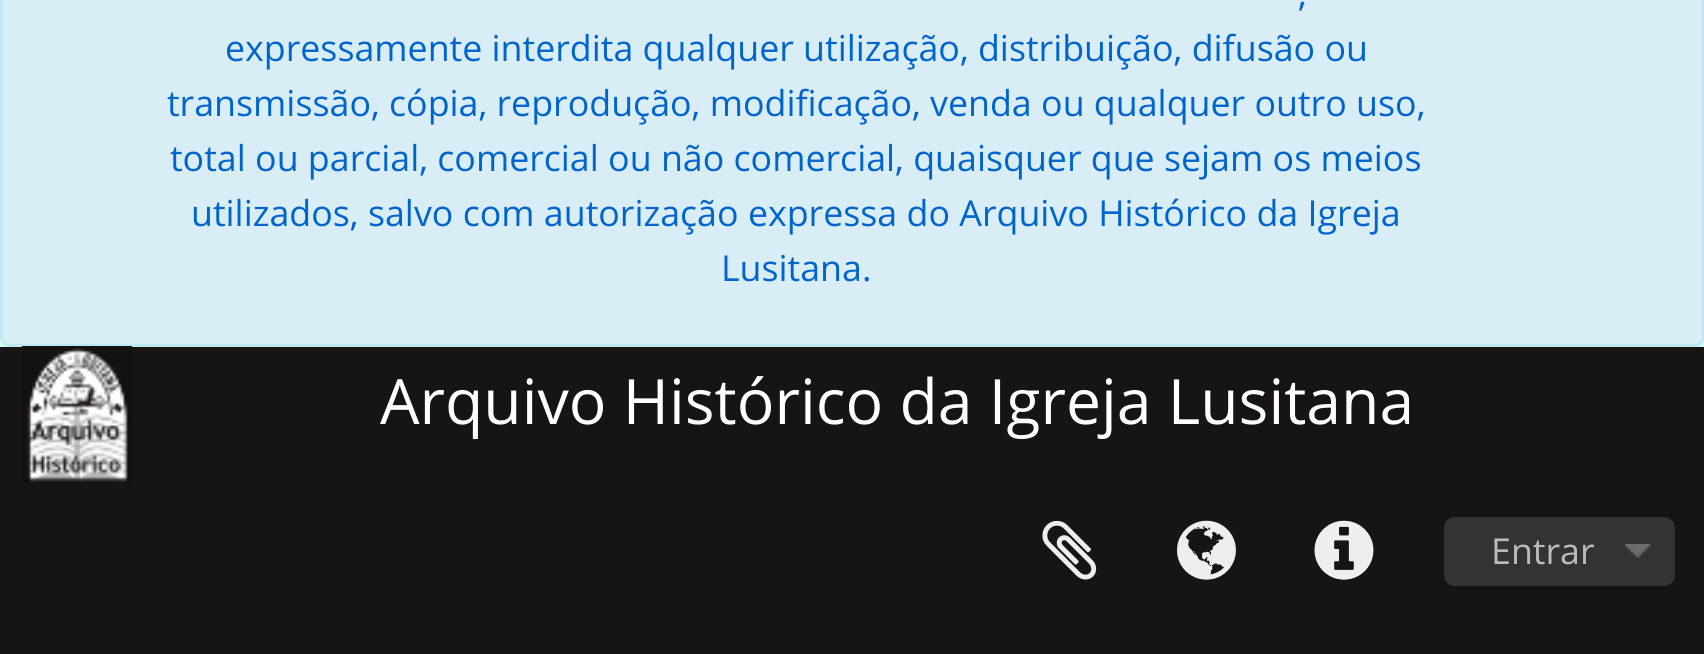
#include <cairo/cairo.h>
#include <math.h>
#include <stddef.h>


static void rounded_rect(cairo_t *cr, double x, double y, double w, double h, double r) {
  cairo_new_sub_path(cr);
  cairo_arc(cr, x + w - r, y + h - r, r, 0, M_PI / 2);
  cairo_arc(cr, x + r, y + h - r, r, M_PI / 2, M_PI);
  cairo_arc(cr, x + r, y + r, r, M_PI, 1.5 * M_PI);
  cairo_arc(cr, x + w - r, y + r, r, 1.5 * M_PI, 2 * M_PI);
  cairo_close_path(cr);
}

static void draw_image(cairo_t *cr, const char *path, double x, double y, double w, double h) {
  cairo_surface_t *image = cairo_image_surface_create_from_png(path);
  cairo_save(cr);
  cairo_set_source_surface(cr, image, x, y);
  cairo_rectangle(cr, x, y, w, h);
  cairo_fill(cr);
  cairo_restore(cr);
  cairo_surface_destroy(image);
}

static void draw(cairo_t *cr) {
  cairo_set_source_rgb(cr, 213 / 255.0, 250 / 255.0, 238 / 255.0);
  cairo_paint(cr);
  cairo_set_source_rgb(cr, 217 / 255.0, 237 / 255.0, 247 / 255.0);
  rounded_rect(cr, 1.5, -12.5, 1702, 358, 9.5);
  cairo_fill_preserve(cr);
  cairo_set_source_rgb(cr, 188 / 255.0, 232 / 255.0, 241 / 255.0);
  cairo_set_line_width(cr, 3);
  cairo_stroke(cr);
  cairo_set_source_rgb(cr, 22 / 255.0, 21 / 255.0, 20 / 255.0);
  cairo_rectangle(cr, 0, 347, 1704, 307);
  cairo_fill(cr);
  draw_image(cr, "images/1.png", 22, 346, 110, 136);
  draw_image(cr, "images/2.png", 1042, 520, 55, 60);
  draw_image(cr, "images/3.png", 1177, 520, 59, 60);
  draw_image(cr, "images/4.png", 1314, 520, 60, 60);
  cairo_set_source_rgb(cr, 51 / 255.0, 51 / 255.0, 51 / 255.0);
  rounded_rect(cr, 1444, 517, 231, 69, 11);
  cairo_fill(cr);
  draw_image(cr, "images/5.png", 1625, 544, 26, 14);
  cairo_select_font_face(cr, "Open Sans", CAIRO_FONT_SLANT_NORMAL, CAIRO_FONT_WEIGHT_NORMAL);
  cairo_set_font_size(cr, 35.75);
  cairo_set_source_rgb(cr, 0, 100 / 255.0, 205 / 255.0);
  cairo_move_to(cr, 1298, 6);
  cairo_show_text(cr, ",");
  cairo_move_to(cr, 225, 61);
  cairo_show_text(cr, "expressamente interdita qualquer utilização, distribuição, difusão ou");
  cairo_move_to(cr, 167, 116);
  cairo_show_text(cr, "transmissão, cópia, reprodução, modificação, venda ou qualquer outro uso,");
  cairo_move_to(cr, 170, 171);
  cairo_show_text(cr, "total ou parcial, comercial ou não comercial, quaisquer que sejam os meios");
  cairo_move_to(cr, 191, 226);
  cairo_show_text(cr, "utilizados, salvo com autorização expressa do Arquivo Histórico da Igreja");
  cairo_move_to(cr, 721, 281);
  cairo_show_text(cr, "Lusitana.");
  cairo_set_font_size(cr, 62.5);
  cairo_set_source_rgb(cr, 1, 1, 1);
  cairo_move_to(cr, 380, 424);
  cairo_show_text(cr, "Arquivo Histórico da Igreja Lusitana");
  cairo_set_font_size(cr, 35.75);
  cairo_set_source_rgb(cr, 187 / 255.0, 187 / 255.0, 187 / 255.0);
  cairo_move_to(cr, 1491, 564);
  cairo_show_text(cr, "Entrar");
}

int main(void) {
  cairo_surface_t *surface = cairo_image_surface_create(CAIRO_FORMAT_RGB24, 1704, 654);
  cairo_t *cr = cairo_create(surface);
  cairo_font_options_t *options = cairo_font_options_create();
  cairo_font_options_set_hint_metrics(options, CAIRO_HINT_METRICS_OFF);
  cairo_font_options_set_hint_style(options, CAIRO_HINT_STYLE_NONE);
  cairo_set_font_options(cr, options);
  cairo_set_miter_limit(cr, 4);
  draw(cr);
  cairo_surface_write_to_png(surface, "out.png");
  cairo_font_options_destroy(options);
  cairo_destroy(cr);
  cairo_surface_destroy(surface);
  return 0;
}
